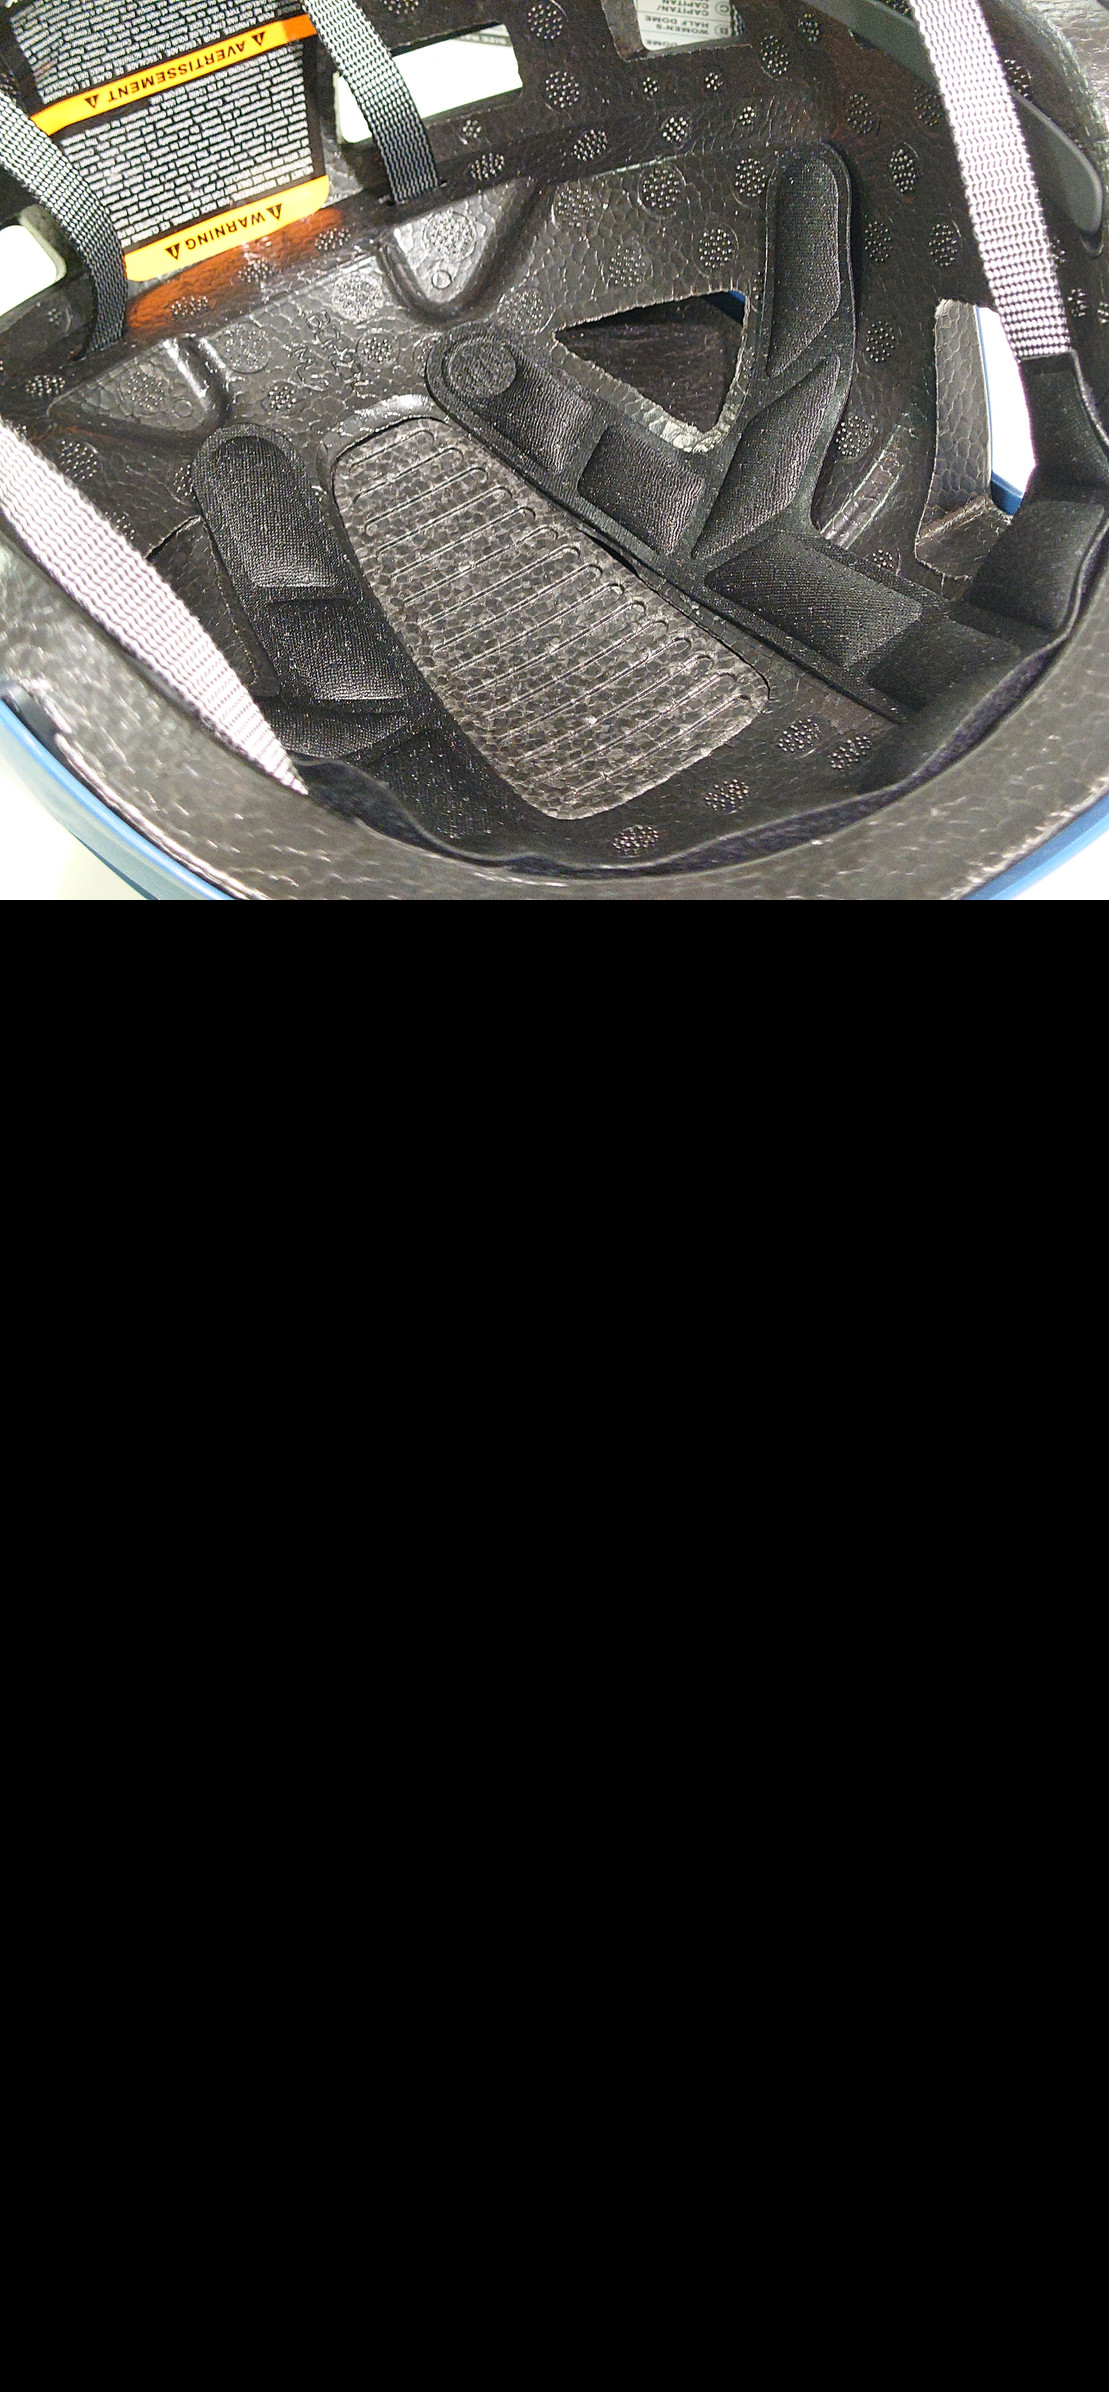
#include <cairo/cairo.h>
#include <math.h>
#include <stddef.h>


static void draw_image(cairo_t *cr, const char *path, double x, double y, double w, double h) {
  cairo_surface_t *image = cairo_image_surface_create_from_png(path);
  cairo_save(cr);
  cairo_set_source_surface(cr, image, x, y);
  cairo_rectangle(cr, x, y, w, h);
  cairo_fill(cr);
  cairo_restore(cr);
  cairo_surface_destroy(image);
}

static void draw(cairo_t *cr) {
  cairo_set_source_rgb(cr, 0, 0, 0);
  cairo_paint(cr);
  draw_image(cr, "images/1.png", 0, 0, 1109, 900);
}

int main(void) {
  cairo_surface_t *surface = cairo_image_surface_create(CAIRO_FORMAT_RGB24, 1109, 2392);
  cairo_t *cr = cairo_create(surface);
  cairo_font_options_t *options = cairo_font_options_create();
  cairo_font_options_set_hint_metrics(options, CAIRO_HINT_METRICS_OFF);
  cairo_font_options_set_hint_style(options, CAIRO_HINT_STYLE_NONE);
  cairo_set_font_options(cr, options);
  cairo_set_miter_limit(cr, 4);
  draw(cr);
  cairo_surface_write_to_png(surface, "out.png");
  cairo_font_options_destroy(options);
  cairo_destroy(cr);
  cairo_surface_destroy(surface);
  return 0;
}
